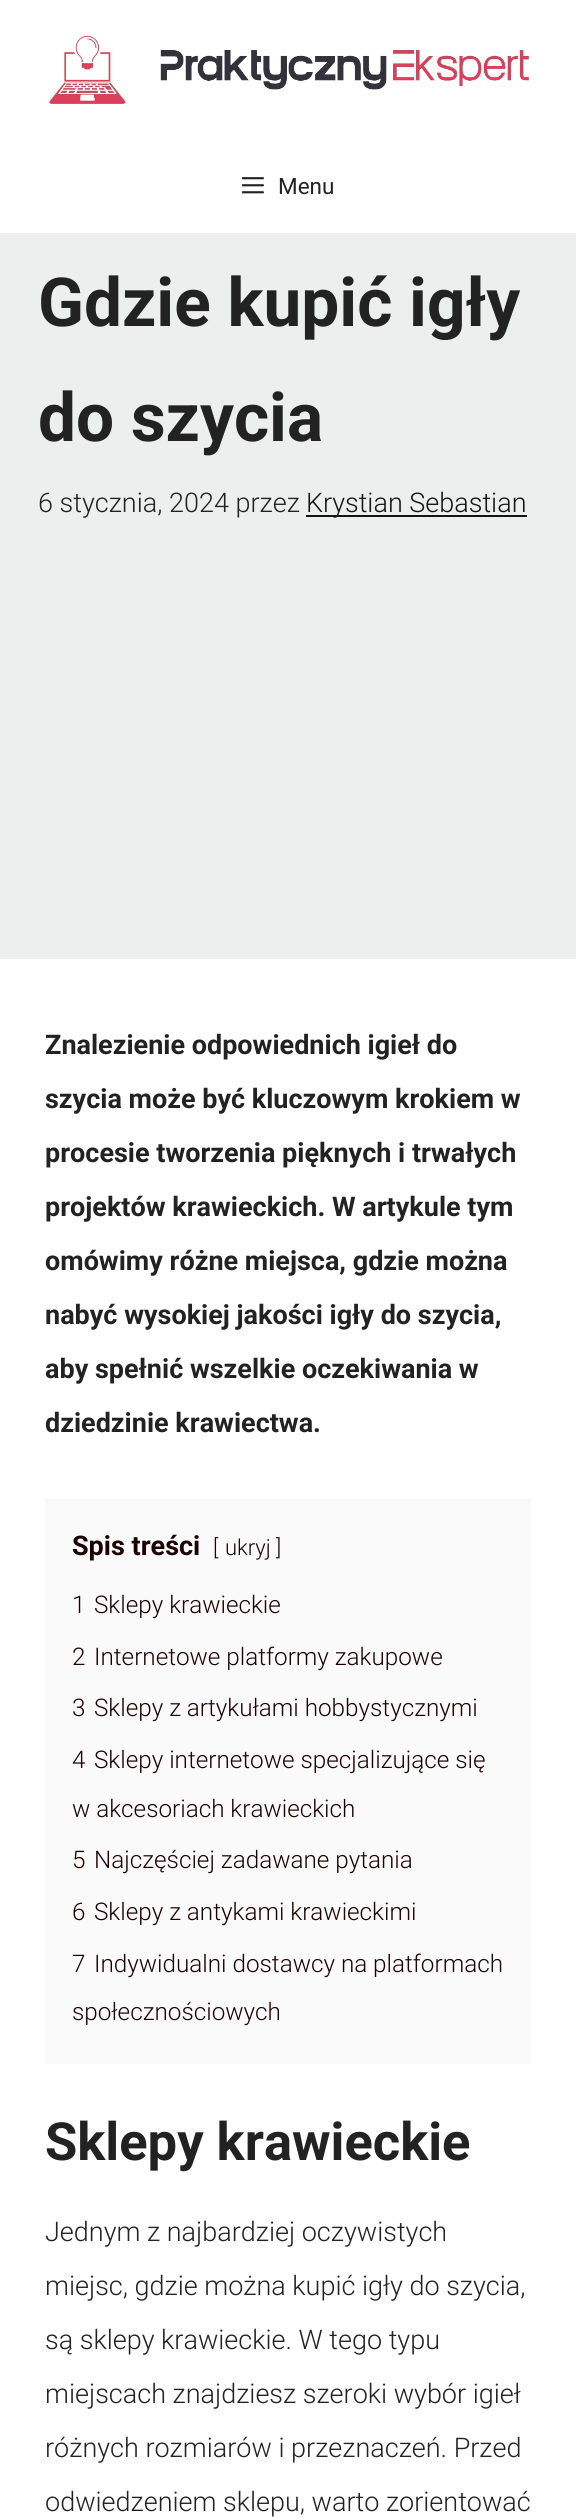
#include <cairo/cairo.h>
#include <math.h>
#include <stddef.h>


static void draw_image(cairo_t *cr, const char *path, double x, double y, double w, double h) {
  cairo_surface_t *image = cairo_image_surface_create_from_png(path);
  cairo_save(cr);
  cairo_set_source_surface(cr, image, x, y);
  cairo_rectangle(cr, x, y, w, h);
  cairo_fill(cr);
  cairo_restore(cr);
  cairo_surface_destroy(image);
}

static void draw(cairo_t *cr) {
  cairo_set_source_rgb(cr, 1, 1, 1);
  cairo_paint(cr);
  draw_image(cr, "images/1.png", 49, 36, 480, 68);
  draw_image(cr, "images/2.png", 242, 177, 22, 17);
  cairo_set_source_rgb(cr, 237 / 255.0, 239 / 255.0, 239 / 255.0);
  cairo_rectangle(cr, 0, 233, 576, 726);
  cairo_fill(cr);
  cairo_set_source_rgb(cr, 20 / 255.0, 20 / 255.0, 20 / 255.0);
  cairo_rectangle(cr, 306, 515, 221, 2);
  cairo_fill(cr);
  cairo_set_source_rgb(cr, 250 / 255.0, 250 / 255.0, 250 / 255.0);
  cairo_rectangle(cr, 45, 1499, 486, 565);
  cairo_fill(cr);
  cairo_select_font_face(cr, "Roboto", CAIRO_FONT_SLANT_NORMAL, CAIRO_FONT_WEIGHT_NORMAL);
  cairo_set_font_size(cr, 22.5);
  cairo_set_source_rgb(cr, 34 / 255.0, 34 / 255.0, 34 / 255.0);
  cairo_move_to(cr, 278, 194);
  cairo_show_text(cr, "Menu");
  cairo_select_font_face(cr, "Roboto", CAIRO_FONT_SLANT_NORMAL, CAIRO_FONT_WEIGHT_BOLD);
  cairo_set_font_size(cr, 67.5);
  cairo_move_to(cr, 38, 326);
  cairo_show_text(cr, "Gdzie kupić igły");
  cairo_move_to(cr, 38, 441);
  cairo_show_text(cr, "do szycia");
  cairo_select_font_face(cr, "Roboto Light", CAIRO_FONT_SLANT_NORMAL, CAIRO_FONT_WEIGHT_NORMAL);
  cairo_set_font_size(cr, 27);
  cairo_move_to(cr, 38, 512);
  cairo_show_text(cr, "6 stycznia, 2024 przez");
  cairo_set_source_rgb(cr, 20 / 255.0, 20 / 255.0, 20 / 255.0);
  cairo_move_to(cr, 306, 512);
  cairo_show_text(cr, "Krystian Sebastian");
  cairo_select_font_face(cr, "Roboto", CAIRO_FONT_SLANT_NORMAL, CAIRO_FONT_WEIGHT_BOLD);
  cairo_set_source_rgb(cr, 34 / 255.0, 34 / 255.0, 34 / 255.0);
  cairo_move_to(cr, 45, 1054);
  cairo_show_text(cr, "Znalezienie odpowiednich igieł do");
  cairo_move_to(cr, 45, 1108);
  cairo_show_text(cr, "szycia może być kluczowym krokiem w");
  cairo_move_to(cr, 45, 1162);
  cairo_show_text(cr, "procesie tworzenia pięknych i trwałych");
  cairo_move_to(cr, 45, 1216);
  cairo_show_text(cr, "projektów krawieckich. W artykule tym");
  cairo_move_to(cr, 45, 1270);
  cairo_show_text(cr, "omówimy różne miejsca, gdzie można");
  cairo_move_to(cr, 45, 1324);
  cairo_show_text(cr, "nabyć wysokiej jakości igły do szycia,");
  cairo_move_to(cr, 45, 1378);
  cairo_show_text(cr, "aby spełnić wszelkie oczekiwania w");
  cairo_move_to(cr, 45, 1432);
  cairo_show_text(cr, "dziedzinie krawiectwa.");
  cairo_set_source_rgb(cr, 28 / 255.0, 1 / 255.0, 1 / 255.0);
  cairo_move_to(cr, 72, 1555);
  cairo_show_text(cr, "Spis treści");
  cairo_select_font_face(cr, "Roboto Light", CAIRO_FONT_SLANT_NORMAL, CAIRO_FONT_WEIGHT_NORMAL);
  cairo_set_font_size(cr, 22);
  cairo_move_to(cr, 213, 1555);
  cairo_show_text(cr, "[");
  cairo_move_to(cr, 225, 1555);
  cairo_show_text(cr, "ukryj");
  cairo_move_to(cr, 276, 1555);
  cairo_show_text(cr, "]");
  cairo_set_font_size(cr, 24.25);
  cairo_move_to(cr, 72, 1613);
  cairo_show_text(cr, "1");
  cairo_move_to(cr, 94, 1613);
  cairo_show_text(cr, "Sklepy krawieckie");
  cairo_move_to(cr, 72, 1665);
  cairo_show_text(cr, "2");
  cairo_move_to(cr, 94, 1665);
  cairo_show_text(cr, "Internetowe platformy zakupowe");
  cairo_move_to(cr, 72, 1716);
  cairo_show_text(cr, "3");
  cairo_move_to(cr, 94, 1716);
  cairo_show_text(cr, "Sklepy z artykułami hobbystycznymi");
  cairo_move_to(cr, 72, 1768);
  cairo_show_text(cr, "4");
  cairo_move_to(cr, 94, 1768);
  cairo_show_text(cr, "Sklepy internetowe specjalizujące się");
  cairo_move_to(cr, 72, 1817);
  cairo_show_text(cr, "w akcesoriach krawieckich");
  cairo_move_to(cr, 72, 1868);
  cairo_show_text(cr, "5");
  cairo_move_to(cr, 94, 1868);
  cairo_show_text(cr, "Najczęściej zadawane pytania");
  cairo_move_to(cr, 72, 1920);
  cairo_show_text(cr, "6");
  cairo_move_to(cr, 94, 1920);
  cairo_show_text(cr, "Sklepy z antykami krawieckimi");
  cairo_move_to(cr, 72, 1972);
  cairo_show_text(cr, "7");
  cairo_move_to(cr, 94, 1972);
  cairo_show_text(cr, "Indywidualni dostawcy na platformach");
  cairo_move_to(cr, 72, 2020);
  cairo_show_text(cr, "społecznościowych");
  cairo_select_font_face(cr, "Roboto", CAIRO_FONT_SLANT_NORMAL, CAIRO_FONT_WEIGHT_BOLD);
  cairo_set_font_size(cr, 52.5);
  cairo_set_source_rgb(cr, 34 / 255.0, 34 / 255.0, 34 / 255.0);
  cairo_move_to(cr, 45, 2160);
  cairo_show_text(cr, "Sklepy krawieckie");
  cairo_select_font_face(cr, "Roboto Light", CAIRO_FONT_SLANT_NORMAL, CAIRO_FONT_WEIGHT_NORMAL);
  cairo_set_font_size(cr, 27);
  cairo_move_to(cr, 45, 2241);
  cairo_show_text(cr, "Jednym z najbardziej oczywistych");
  cairo_move_to(cr, 45, 2295);
  cairo_show_text(cr, "miejsc, gdzie można kupić igły do szycia,");
  cairo_move_to(cr, 45, 2349);
  cairo_show_text(cr, "są sklepy krawieckie. W tego typu");
  cairo_move_to(cr, 45, 2403);
  cairo_show_text(cr, "miejscach znajdziesz szeroki wybór igieł");
  cairo_move_to(cr, 45, 2457);
  cairo_show_text(cr, "różnych rozmiarów i przeznaczeń. Przed");
  cairo_move_to(cr, 45, 2511);
  cairo_show_text(cr, "odwiedzeniem sklepu, warto zorientować");
}

int main(void) {
  cairo_surface_t *surface = cairo_image_surface_create(CAIRO_FORMAT_RGB24, 576, 2518);
  cairo_t *cr = cairo_create(surface);
  cairo_font_options_t *options = cairo_font_options_create();
  cairo_font_options_set_hint_metrics(options, CAIRO_HINT_METRICS_OFF);
  cairo_font_options_set_hint_style(options, CAIRO_HINT_STYLE_NONE);
  cairo_set_font_options(cr, options);
  cairo_set_miter_limit(cr, 4);
  draw(cr);
  cairo_surface_write_to_png(surface, "out.png");
  cairo_font_options_destroy(options);
  cairo_destroy(cr);
  cairo_surface_destroy(surface);
  return 0;
}
